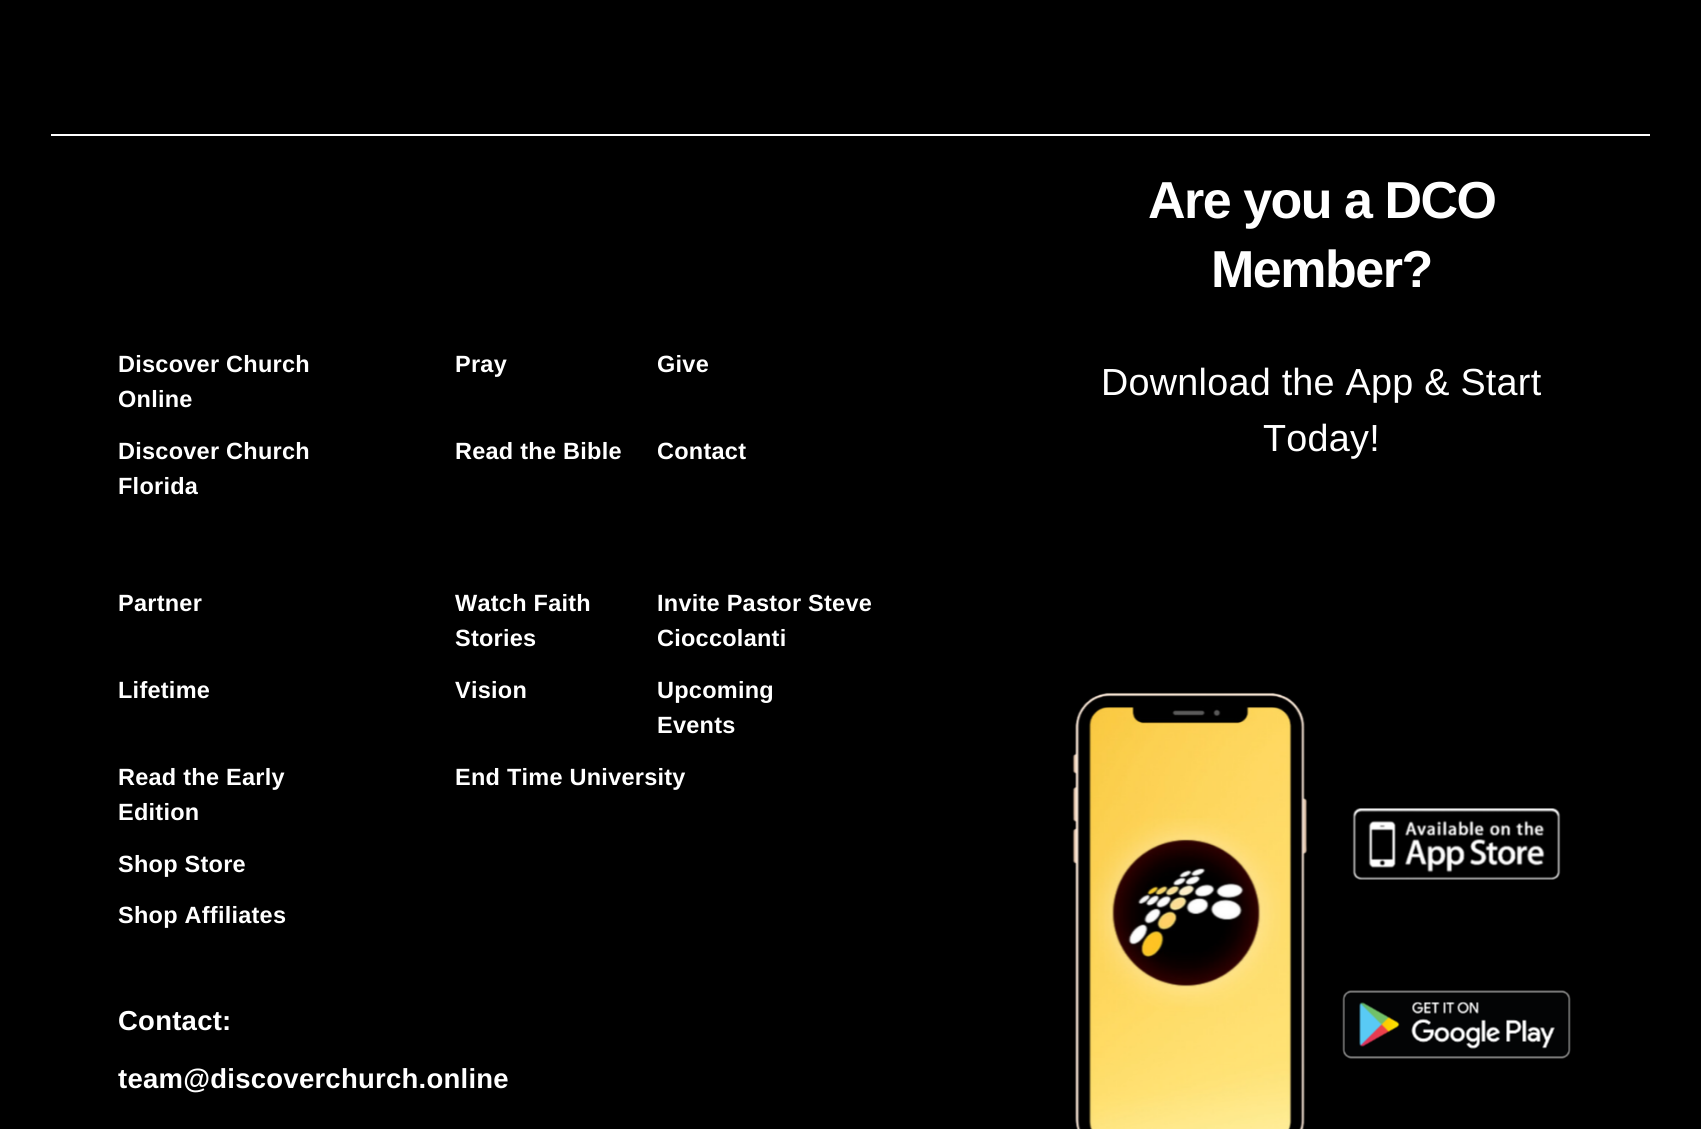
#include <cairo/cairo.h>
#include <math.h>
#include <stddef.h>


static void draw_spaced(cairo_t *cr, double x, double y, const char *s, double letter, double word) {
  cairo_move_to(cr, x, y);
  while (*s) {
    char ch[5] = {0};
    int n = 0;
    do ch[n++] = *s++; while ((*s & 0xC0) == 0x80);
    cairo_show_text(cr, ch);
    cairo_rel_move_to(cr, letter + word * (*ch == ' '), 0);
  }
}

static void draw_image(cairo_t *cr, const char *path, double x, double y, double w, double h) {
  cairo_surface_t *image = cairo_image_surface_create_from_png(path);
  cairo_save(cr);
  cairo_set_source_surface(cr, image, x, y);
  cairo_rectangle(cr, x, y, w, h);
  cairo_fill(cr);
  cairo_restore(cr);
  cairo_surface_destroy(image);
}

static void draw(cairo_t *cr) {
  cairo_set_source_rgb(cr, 0, 0, 0);
  cairo_paint(cr);
  cairo_set_source_rgb(cr, 1, 1, 1);
  cairo_rectangle(cr, 51, 134, 1599, 2);
  cairo_fill(cr);
  draw_image(cr, "images/1.png", 1072, 692, 236, 437);
  draw_image(cr, "images/2.png", 1352, 808, 209, 72);
  draw_image(cr, "images/3.png", 1342, 990, 229, 69);
  cairo_select_font_face(cr, "Liberation Sans", CAIRO_FONT_SLANT_NORMAL, CAIRO_FONT_WEIGHT_BOLD);
  cairo_set_font_size(cr, 23.5);
  draw_spaced(cr, 118, 372, "Discover Church", 0.25, 0);
  draw_spaced(cr, 118, 407, "Online", 0.25, 0);
  draw_spaced(cr, 455, 372, "Pray", 0.25, 0);
  draw_spaced(cr, 657, 372, "Give", 0.25, 0);
  cairo_set_font_size(cr, 52);
  draw_spaced(cr, 1148, 218, "Are you a DCO", -1.5, 0);
  draw_spaced(cr, 1211, 287, "Member?", -1.5, 0);
  cairo_select_font_face(cr, "Liberation Sans", CAIRO_FONT_SLANT_NORMAL, CAIRO_FONT_WEIGHT_NORMAL);
  cairo_set_font_size(cr, 37.75);
  draw_spaced(cr, 1101, 395, "Download the App & Start", 0.25, 0);
  draw_spaced(cr, 1263, 451, "Today!", 0.25, 0);
  cairo_select_font_face(cr, "Liberation Sans", CAIRO_FONT_SLANT_NORMAL, CAIRO_FONT_WEIGHT_BOLD);
  cairo_set_font_size(cr, 23.5);
  draw_spaced(cr, 118, 459, "Discover Church", 0.25, 0);
  draw_spaced(cr, 118, 494, "Florida", 0.25, 0);
  draw_spaced(cr, 455, 459, "Read the Bible", 0.25, 0);
  draw_spaced(cr, 657, 459, "Contact", 0.25, 0);
  draw_spaced(cr, 118, 611, "Partner", 0.25, 0);
  draw_spaced(cr, 455, 611, "Watch Faith", 0.25, 0);
  draw_spaced(cr, 455, 646, "Stories", 0.25, 0);
  draw_spaced(cr, 657, 611, "Invite Pastor Steve", 0.25, 0);
  draw_spaced(cr, 657, 646, "Cioccolanti", 0.25, 0);
  draw_spaced(cr, 118, 698, "Lifetime", 0.25, 0);
  draw_spaced(cr, 455, 698, "Vision", 0.25, 0);
  draw_spaced(cr, 657, 698, "Upcoming", 0.25, 0);
  draw_spaced(cr, 657, 733, "Events", 0.25, 0);
  draw_spaced(cr, 118, 785, "Read the Early", 0.25, 0);
  draw_spaced(cr, 118, 820, "Edition", 0.25, 0);
  draw_spaced(cr, 455, 785, "End Time University", 0.25, 0);
  draw_spaced(cr, 118, 872, "Shop Store", 0.25, 0);
  draw_spaced(cr, 118, 923, "Shop Affiliates", 0.25, 0);
  cairo_set_font_size(cr, 27.5);
  draw_spaced(cr, 118, 1030, "Contact:", 0.25, 0);
  draw_spaced(cr, 118, 1088, "team@discoverchurch.online", 0.25, 0);
}

int main(void) {
  cairo_surface_t *surface = cairo_image_surface_create(CAIRO_FORMAT_RGB24, 1701, 1129);
  cairo_t *cr = cairo_create(surface);
  cairo_font_options_t *options = cairo_font_options_create();
  cairo_font_options_set_hint_metrics(options, CAIRO_HINT_METRICS_OFF);
  cairo_font_options_set_hint_style(options, CAIRO_HINT_STYLE_NONE);
  cairo_set_font_options(cr, options);
  cairo_set_miter_limit(cr, 4);
  draw(cr);
  cairo_surface_write_to_png(surface, "out.png");
  cairo_font_options_destroy(options);
  cairo_destroy(cr);
  cairo_surface_destroy(surface);
  return 0;
}
